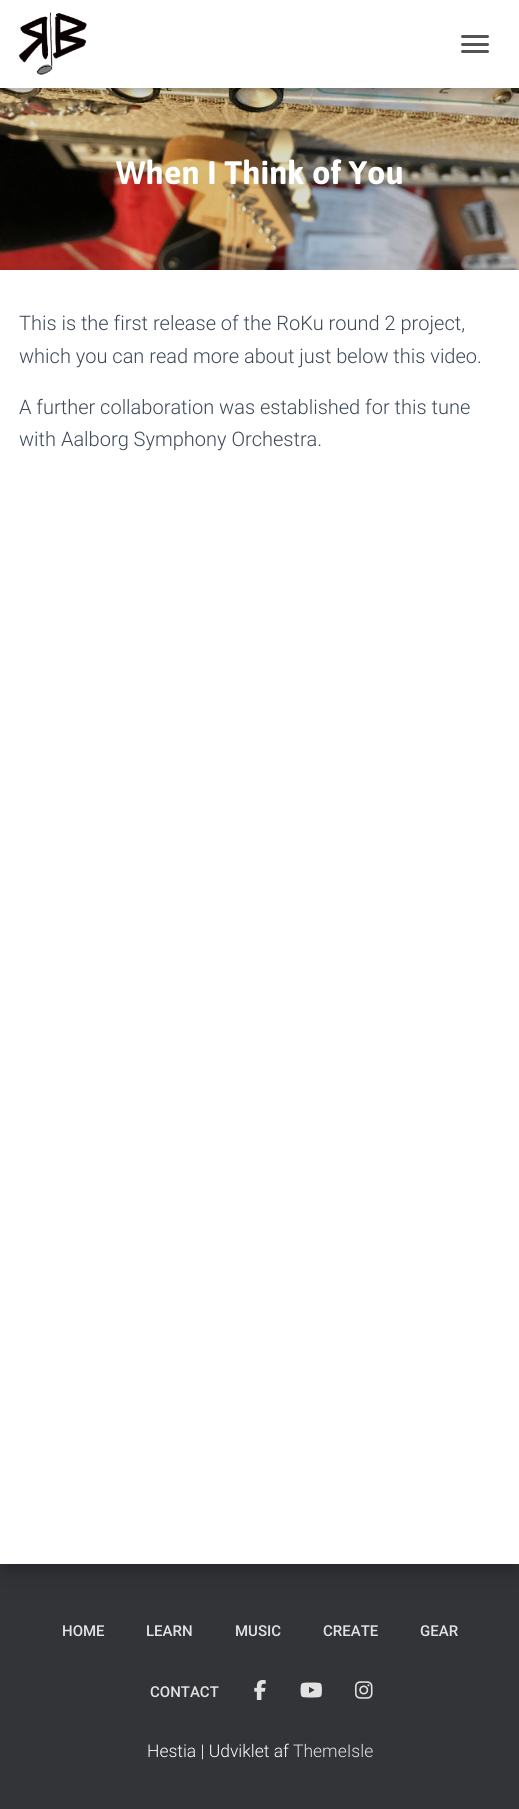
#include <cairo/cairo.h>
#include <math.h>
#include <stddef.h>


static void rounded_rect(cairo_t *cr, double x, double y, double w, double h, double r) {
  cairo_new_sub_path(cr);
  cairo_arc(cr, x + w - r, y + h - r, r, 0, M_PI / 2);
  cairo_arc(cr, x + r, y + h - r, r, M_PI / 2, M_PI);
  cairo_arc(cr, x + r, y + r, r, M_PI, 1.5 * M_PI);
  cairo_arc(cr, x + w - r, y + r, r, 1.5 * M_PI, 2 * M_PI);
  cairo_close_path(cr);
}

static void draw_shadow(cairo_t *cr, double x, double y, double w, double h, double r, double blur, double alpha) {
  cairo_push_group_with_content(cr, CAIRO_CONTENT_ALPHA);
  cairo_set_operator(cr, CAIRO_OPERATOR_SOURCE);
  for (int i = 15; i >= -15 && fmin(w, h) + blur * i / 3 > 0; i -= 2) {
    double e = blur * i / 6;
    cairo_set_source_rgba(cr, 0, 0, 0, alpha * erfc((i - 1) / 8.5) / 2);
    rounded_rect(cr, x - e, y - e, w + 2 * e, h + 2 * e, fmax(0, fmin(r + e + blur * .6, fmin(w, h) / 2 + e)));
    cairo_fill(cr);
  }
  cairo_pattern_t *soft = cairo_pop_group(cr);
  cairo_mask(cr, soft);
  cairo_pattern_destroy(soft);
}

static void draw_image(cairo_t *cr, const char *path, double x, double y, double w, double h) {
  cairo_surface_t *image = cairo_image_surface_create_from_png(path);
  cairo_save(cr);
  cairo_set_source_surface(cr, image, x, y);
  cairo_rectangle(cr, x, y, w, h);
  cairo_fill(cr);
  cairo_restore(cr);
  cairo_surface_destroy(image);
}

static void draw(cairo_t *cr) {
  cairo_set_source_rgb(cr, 50 / 255.0, 52 / 255.0, 55 / 255.0);
  cairo_paint(cr);
  draw_image(cr, "images/2.png", 0, 88, 519, 182);
  cairo_set_source_rgb(cr, 0, 0, 0);
  draw_shadow(cr, 3, 8, 515, 82, 0, 3, 0.1);
  draw_shadow(cr, 0, 1, 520, 88, 0, 6, 0.12);
  draw_shadow(cr, 8, 9, 505, 72, 0, 6, 0.42);
  cairo_set_source_rgb(cr, 1, 1, 1);
  cairo_rectangle(cr, 0, 0, 519, 88);
  cairo_fill(cr);
  draw_image(cr, "images/1.png", 18, 12, 69, 63);
  cairo_set_source_rgb(cr, 85 / 255.0, 85 / 255.0, 85 / 255.0);
  rounded_rect(cr, 461, 35, 28, 3, 1.5);
  cairo_fill(cr);
  rounded_rect(cr, 461, 43, 28, 3, 1.5);
  cairo_fill(cr);
  rounded_rect(cr, 461, 50, 28, 3, 1.5);
  cairo_fill(cr);
  cairo_set_source_rgb(cr, 0, 0, 0);
  draw_shadow(cr, 6, 286, 508, 1282, 0, 6, 0.2);
  draw_shadow(cr, -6, 271, 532, 1307, 0, 19, 0.12);
  cairo_set_source_rgb(cr, 1, 1, 1);
  cairo_rectangle(cr, 0, 270, 519, 1294);
  cairo_fill(cr);
  draw_image(cr, "images/3.png", 254, 1680, 12, 20);
  draw_image(cr, "images/4.png", 300, 1682, 22, 16);
  draw_image(cr, "images/5.png", 355, 1681, 18, 18);
  cairo_select_font_face(cr, "Asap", CAIRO_FONT_SLANT_NORMAL, CAIRO_FONT_WEIGHT_BOLD);
  cairo_set_font_size(cr, 32.5);
  cairo_move_to(cr, 116, 184);
  cairo_show_text(cr, "When I Think of You");
  cairo_select_font_face(cr, "Roboto Light", CAIRO_FONT_SLANT_NORMAL, CAIRO_FONT_WEIGHT_NORMAL);
  cairo_set_font_size(cr, 20);
  cairo_set_source_rgb(cr, 60 / 255.0, 72 / 255.0, 88 / 255.0);
  cairo_move_to(cr, 19, 330);
  cairo_show_text(cr, "This is the first release of the RoKu round 2 project,");
  cairo_move_to(cr, 19, 363);
  cairo_show_text(cr, "which you can read more about just below this video.");
  cairo_move_to(cr, 19, 414);
  cairo_show_text(cr, "A further collaboration was established for this tune");
  cairo_move_to(cr, 19, 446);
  cairo_show_text(cr, "with Aalborg Symphony Orchestra.");
  cairo_select_font_face(cr, "Roboto Medium", CAIRO_FONT_SLANT_NORMAL, CAIRO_FONT_WEIGHT_NORMAL);
  cairo_set_font_size(cr, 15);
  cairo_set_source_rgb(cr, 226 / 255.0, 227 / 255.0, 227 / 255.0);
  cairo_move_to(cr, 62, 1636);
  cairo_show_text(cr, "HOME");
  cairo_move_to(cr, 146, 1636);
  cairo_show_text(cr, "LEARN");
  cairo_move_to(cr, 235, 1636);
  cairo_show_text(cr, "MUSIC");
  cairo_move_to(cr, 323, 1636);
  cairo_show_text(cr, "CREATE");
  cairo_move_to(cr, 420, 1636);
  cairo_show_text(cr, "GEAR");
  cairo_move_to(cr, 150, 1697);
  cairo_show_text(cr, "CONTACT");
  cairo_select_font_face(cr, "Roboto Light", CAIRO_FONT_SLANT_NORMAL, CAIRO_FONT_WEIGHT_NORMAL);
  cairo_set_font_size(cr, 17.5);
  cairo_set_source_rgb(cr, 1, 1, 1);
  cairo_move_to(cr, 147, 1757);
  cairo_show_text(cr, "Hestia | Udviklet af");
  cairo_set_source_rgb(cr, 226 / 255.0, 227 / 255.0, 227 / 255.0);
  cairo_move_to(cr, 293, 1757);
  cairo_show_text(cr, "ThemeIsle");
}

int main(void) {
  cairo_surface_t *surface = cairo_image_surface_create(CAIRO_FORMAT_RGB24, 519, 1809);
  cairo_t *cr = cairo_create(surface);
  cairo_font_options_t *options = cairo_font_options_create();
  cairo_font_options_set_hint_metrics(options, CAIRO_HINT_METRICS_OFF);
  cairo_font_options_set_hint_style(options, CAIRO_HINT_STYLE_NONE);
  cairo_set_font_options(cr, options);
  cairo_set_miter_limit(cr, 4);
  draw(cr);
  cairo_surface_write_to_png(surface, "out.png");
  cairo_font_options_destroy(options);
  cairo_destroy(cr);
  cairo_surface_destroy(surface);
  return 0;
}
